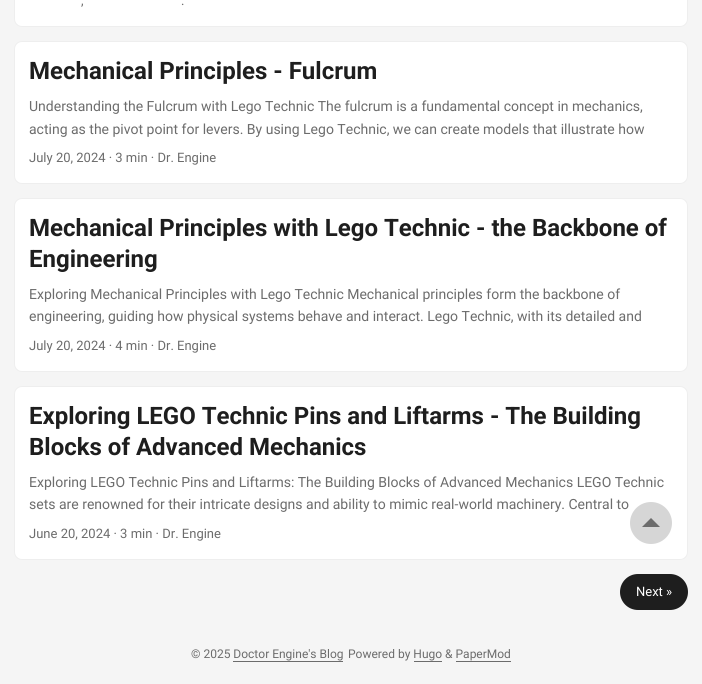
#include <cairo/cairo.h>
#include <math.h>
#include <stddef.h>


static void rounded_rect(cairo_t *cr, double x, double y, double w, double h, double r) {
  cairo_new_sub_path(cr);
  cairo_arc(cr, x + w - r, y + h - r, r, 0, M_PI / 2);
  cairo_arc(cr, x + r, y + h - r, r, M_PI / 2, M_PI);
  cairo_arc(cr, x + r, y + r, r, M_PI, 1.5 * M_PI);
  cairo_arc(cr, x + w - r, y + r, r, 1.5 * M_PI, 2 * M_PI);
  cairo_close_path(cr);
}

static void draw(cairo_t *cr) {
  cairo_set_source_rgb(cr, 245 / 255.0, 245 / 255.0, 245 / 255.0);
  cairo_paint(cr);
  cairo_set_source_rgb(cr, 1, 1, 1);
  rounded_rect(cr, 14.5, -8.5, 673, 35, 7.5);
  cairo_fill_preserve(cr);
  cairo_set_source_rgb(cr, 238 / 255.0, 238 / 255.0, 238 / 255.0);
  cairo_set_line_width(cr, 1);
  cairo_stroke(cr);
  cairo_set_source_rgb(cr, 1, 1, 1);
  rounded_rect(cr, 14.5, 41.5, 673, 142, 7.5);
  cairo_fill_preserve(cr);
  cairo_set_source_rgb(cr, 238 / 255.0, 238 / 255.0, 238 / 255.0);
  cairo_stroke(cr);
  cairo_set_source_rgb(cr, 1, 1, 1);
  rounded_rect(cr, 14.5, 198.5, 673, 173, 7.5);
  cairo_fill_preserve(cr);
  cairo_set_source_rgb(cr, 238 / 255.0, 238 / 255.0, 238 / 255.0);
  cairo_stroke(cr);
  cairo_set_source_rgb(cr, 1, 1, 1);
  rounded_rect(cr, 14.5, 386.5, 673, 173, 7.5);
  cairo_fill_preserve(cr);
  cairo_set_source_rgb(cr, 238 / 255.0, 238 / 255.0, 238 / 255.0);
  cairo_stroke(cr);
  cairo_set_source_rgb(cr, 30 / 255.0, 30 / 255.0, 30 / 255.0);
  rounded_rect(cr, 620, 574, 68, 36, 18);
  cairo_fill(cr);
  cairo_set_source_rgb(cr, 214 / 255.0, 214 / 255.0, 214 / 255.0);
  cairo_arc(cr, 651, 523, 21, 0, 2 * M_PI);
  cairo_fill(cr);
  cairo_set_source_rgb(cr, 108 / 255.0, 108 / 255.0, 108 / 255.0);
  cairo_new_path(cr);
  cairo_move_to(cr, 660, 527);
  cairo_line_to(cr, 642, 527);
  cairo_line_to(cr, 651, 518);
  cairo_close_path(cr);
  cairo_fill(cr);
  cairo_rectangle(cr, 233, 661, 110, 1);
  cairo_fill(cr);
  cairo_rectangle(cr, 414, 661, 28, 1);
  cairo_fill(cr);
  cairo_rectangle(cr, 456, 661, 55, 1);
  cairo_fill(cr);
  cairo_select_font_face(cr, "Roboto", CAIRO_FONT_SLANT_NORMAL, CAIRO_FONT_WEIGHT_NORMAL);
  cairo_set_font_size(cr, 13);
  cairo_move_to(cr, 81, 5);
  cairo_show_text(cr, ",");
  cairo_move_to(cr, 181, 5);
  cairo_show_text(cr, ".");
  cairo_select_font_face(cr, "Roboto", CAIRO_FONT_SLANT_NORMAL, CAIRO_FONT_WEIGHT_BOLD);
  cairo_set_font_size(cr, 24);
  cairo_set_source_rgb(cr, 30 / 255.0, 30 / 255.0, 30 / 255.0);
  cairo_move_to(cr, 29, 79);
  cairo_show_text(cr, "Mechanical Principles - Fulcrum");
  cairo_select_font_face(cr, "Roboto", CAIRO_FONT_SLANT_NORMAL, CAIRO_FONT_WEIGHT_NORMAL);
  cairo_set_font_size(cr, 14);
  cairo_set_source_rgb(cr, 108 / 255.0, 108 / 255.0, 108 / 255.0);
  cairo_move_to(cr, 29, 111);
  cairo_show_text(cr, "Understanding the Fulcrum with Lego Technic The fulcrum is a fundamental concept in mechanics,");
  cairo_move_to(cr, 29, 134);
  cairo_show_text(cr, "acting as the pivot point for levers. By using Lego Technic, we can create models that illustrate how");
  cairo_set_font_size(cr, 13);
  cairo_move_to(cr, 29, 162);
  cairo_show_text(cr, "July 20, 2024 · 3 min · Dr. Engine");
  cairo_select_font_face(cr, "Roboto", CAIRO_FONT_SLANT_NORMAL, CAIRO_FONT_WEIGHT_BOLD);
  cairo_set_font_size(cr, 24);
  cairo_set_source_rgb(cr, 30 / 255.0, 30 / 255.0, 30 / 255.0);
  cairo_move_to(cr, 29, 236);
  cairo_show_text(cr, "Mechanical Principles with Lego Technic - the Backbone of");
  cairo_move_to(cr, 29, 267);
  cairo_show_text(cr, "Engineering");
  cairo_select_font_face(cr, "Roboto", CAIRO_FONT_SLANT_NORMAL, CAIRO_FONT_WEIGHT_NORMAL);
  cairo_set_font_size(cr, 14);
  cairo_set_source_rgb(cr, 108 / 255.0, 108 / 255.0, 108 / 255.0);
  cairo_move_to(cr, 29, 299);
  cairo_show_text(cr, "Exploring Mechanical Principles with Lego Technic Mechanical principles form the backbone of");
  cairo_move_to(cr, 29, 321);
  cairo_show_text(cr, "engineering, guiding how physical systems behave and interact. Lego Technic, with its detailed and");
  cairo_set_font_size(cr, 13);
  cairo_move_to(cr, 29, 350);
  cairo_show_text(cr, "July 20, 2024 · 4 min · Dr. Engine");
  cairo_select_font_face(cr, "Roboto", CAIRO_FONT_SLANT_NORMAL, CAIRO_FONT_WEIGHT_BOLD);
  cairo_set_font_size(cr, 24);
  cairo_set_source_rgb(cr, 30 / 255.0, 30 / 255.0, 30 / 255.0);
  cairo_move_to(cr, 29, 424);
  cairo_show_text(cr, "Exploring LEGO Technic Pins and Liftarms - The Building");
  cairo_move_to(cr, 29, 455);
  cairo_show_text(cr, "Blocks of Advanced Mechanics");
  cairo_select_font_face(cr, "Roboto", CAIRO_FONT_SLANT_NORMAL, CAIRO_FONT_WEIGHT_NORMAL);
  cairo_set_font_size(cr, 14);
  cairo_set_source_rgb(cr, 108 / 255.0, 108 / 255.0, 108 / 255.0);
  cairo_move_to(cr, 29, 487);
  cairo_show_text(cr, "Exploring LEGO Technic Pins and Liftarms: The Building Blocks of Advanced Mechanics LEGO Technic");
  cairo_move_to(cr, 29, 509);
  cairo_show_text(cr, "sets are renowned for their intricate designs and ability to mimic real-world machinery. Central to");
  cairo_set_font_size(cr, 13);
  cairo_move_to(cr, 29, 538);
  cairo_show_text(cr, "June 20, 2024 · 3 min · Dr. Engine");
  cairo_set_source_rgb(cr, 1, 1, 1);
  cairo_move_to(cr, 636, 596);
  cairo_show_text(cr, "Next »");
  cairo_set_font_size(cr, 12);
  cairo_set_source_rgb(cr, 108 / 255.0, 108 / 255.0, 108 / 255.0);
  cairo_move_to(cr, 191, 658);
  cairo_show_text(cr, "© 2025 Doctor Engine's Blog");
  cairo_move_to(cr, 348, 658);
  cairo_show_text(cr, "Powered by Hugo & PaperMod");
}

int main(void) {
  cairo_surface_t *surface = cairo_image_surface_create(CAIRO_FORMAT_RGB24, 702, 684);
  cairo_t *cr = cairo_create(surface);
  cairo_font_options_t *options = cairo_font_options_create();
  cairo_font_options_set_hint_metrics(options, CAIRO_HINT_METRICS_OFF);
  cairo_font_options_set_hint_style(options, CAIRO_HINT_STYLE_NONE);
  cairo_set_font_options(cr, options);
  cairo_set_miter_limit(cr, 4);
  draw(cr);
  cairo_surface_write_to_png(surface, "out.png");
  cairo_font_options_destroy(options);
  cairo_destroy(cr);
  cairo_surface_destroy(surface);
  return 0;
}
